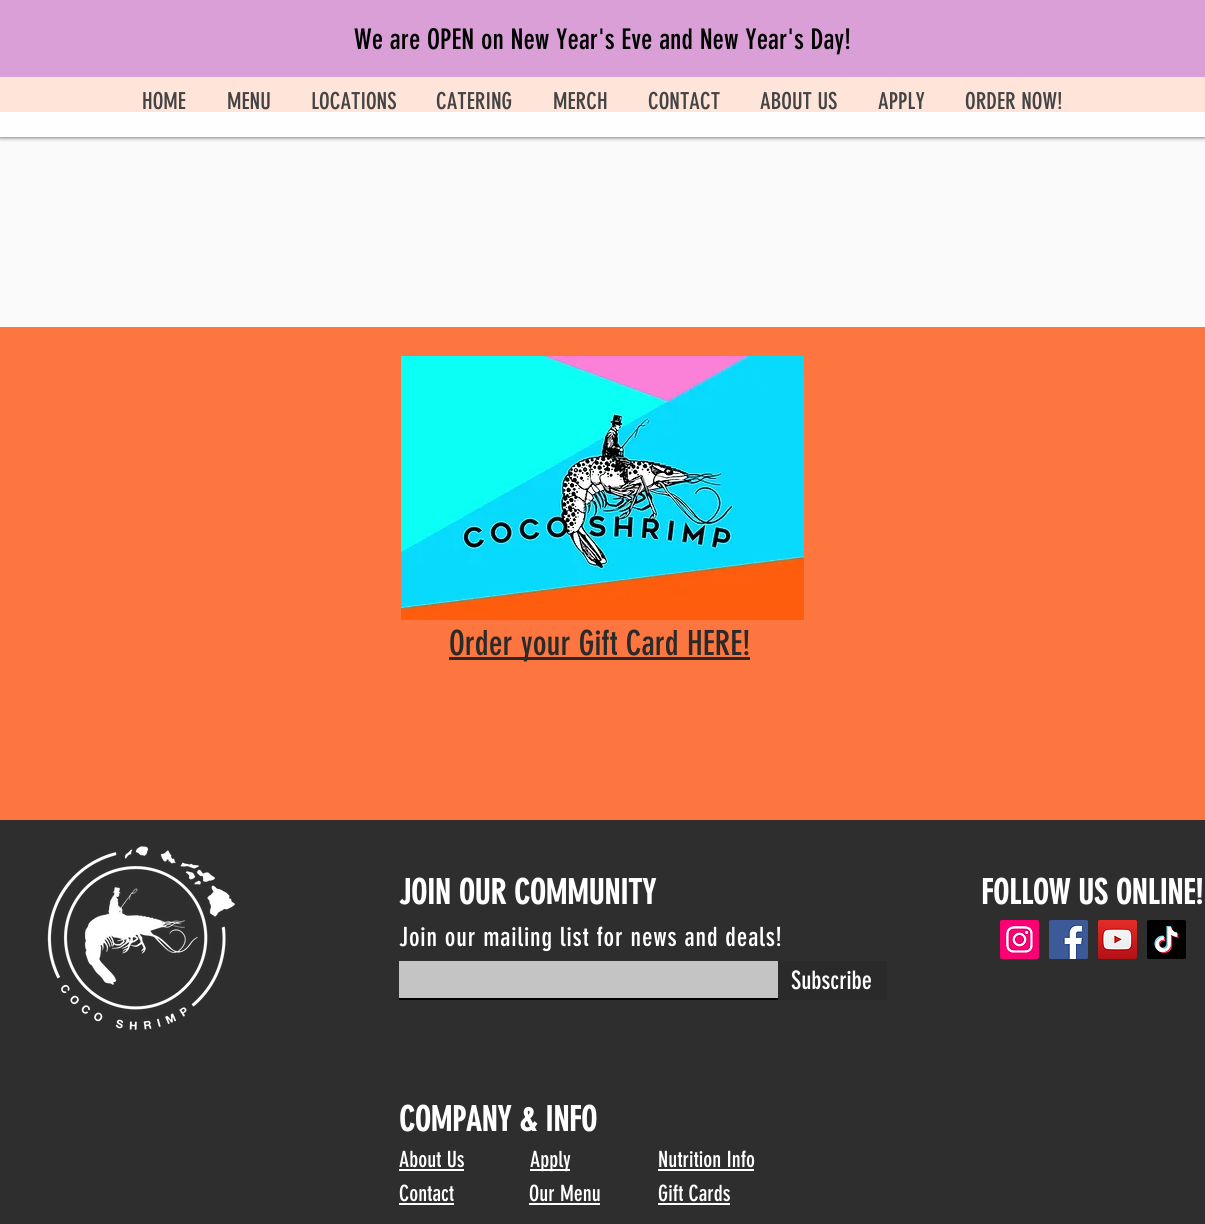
#include <cairo/cairo.h>
#include <math.h>
#include <stddef.h>


static void draw_spaced(cairo_t *cr, double x, double y, const char *s, double letter, double word) {
  cairo_move_to(cr, x, y);
  while (*s) {
    char ch[5] = {0};
    int n = 0;
    do ch[n++] = *s++; while ((*s & 0xC0) == 0x80);
    cairo_show_text(cr, ch);
    cairo_rel_move_to(cr, letter + word * (*ch == ' '), 0);
  }
}

static void rounded_rect(cairo_t *cr, double x, double y, double w, double h, double r) {
  cairo_new_sub_path(cr);
  cairo_arc(cr, x + w - r, y + h - r, r, 0, M_PI / 2);
  cairo_arc(cr, x + r, y + h - r, r, M_PI / 2, M_PI);
  cairo_arc(cr, x + r, y + r, r, M_PI, 1.5 * M_PI);
  cairo_arc(cr, x + w - r, y + r, r, 1.5 * M_PI, 2 * M_PI);
  cairo_close_path(cr);
}

static void draw_shadow(cairo_t *cr, double x, double y, double w, double h, double r, double blur, double alpha) {
  cairo_push_group_with_content(cr, CAIRO_CONTENT_ALPHA);
  cairo_set_operator(cr, CAIRO_OPERATOR_SOURCE);
  for (int i = 15; i >= -15 && fmin(w, h) + blur * i / 3 > 0; i -= 2) {
    double e = blur * i / 6;
    cairo_set_source_rgba(cr, 0, 0, 0, alpha * erfc((i - 1) / 8.5) / 2);
    rounded_rect(cr, x - e, y - e, w + 2 * e, h + 2 * e, fmax(0, fmin(r + e + blur * .6, fmin(w, h) / 2 + e)));
    cairo_fill(cr);
  }
  cairo_pattern_t *soft = cairo_pop_group(cr);
  cairo_mask(cr, soft);
  cairo_pattern_destroy(soft);
}

static void draw_image(cairo_t *cr, const char *path, double x, double y, double w, double h) {
  cairo_surface_t *image = cairo_image_surface_create_from_png(path);
  cairo_save(cr);
  cairo_set_source_surface(cr, image, x, y);
  cairo_rectangle(cr, x, y, w, h);
  cairo_fill(cr);
  cairo_restore(cr);
  cairo_surface_destroy(image);
}

static void draw(cairo_t *cr) {
  cairo_set_source_rgb(cr, 253 / 255.0, 118 / 255.0, 63 / 255.0);
  cairo_paint(cr);
  cairo_set_source_rgb(cr, 250 / 255.0, 250 / 255.0, 250 / 255.0);
  cairo_rectangle(cr, 0, 137, 1205, 190);
  cairo_fill(cr);
  cairo_set_source_rgb(cr, 254 / 255.0, 254 / 255.0, 254 / 255.0);
  cairo_rectangle(cr, 0, 112, 1205, 25);
  cairo_fill(cr);
  cairo_set_source_rgb(cr, 1, 228 / 255.0, 217 / 255.0);
  cairo_rectangle(cr, 0, 77, 1205, 35);
  cairo_fill(cr);
  cairo_save(cr);
  cairo_rectangle(cr, 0, 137, 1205, 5);
  cairo_clip(cr);
  cairo_set_source_rgb(cr, 0, 0, 0);
  draw_shadow(cr, 0, 0, 1205, 137, 0, 2.5, 0.7);
  cairo_restore(cr);
  cairo_set_source_rgb(cr, 217 / 255.0, 159 / 255.0, 214 / 255.0);
  cairo_rectangle(cr, 0, 0, 1205, 77);
  cairo_fill(cr);
  draw_image(cr, "images/1.png", 401, 356, 403, 264);
  cairo_set_source_rgb(cr, 42 / 255.0, 42 / 255.0, 42 / 255.0);
  cairo_rectangle(cr, 449, 657, 301, 3);
  cairo_fill(cr);
  cairo_set_source_rgb(cr, 47 / 255.0, 46 / 255.0, 46 / 255.0);
  cairo_rectangle(cr, 0, 820, 1205, 404);
  cairo_fill(cr);
  draw_image(cr, "images/2.png", 47, 846, 188, 184);
  cairo_set_source_rgb(cr, 197 / 255.0, 196 / 255.0, 196 / 255.0);
  cairo_rectangle(cr, 399, 961, 379, 37);
  cairo_fill(cr);
  cairo_set_source_rgb(cr, 0, 0, 0);
  cairo_rectangle(cr, 399, 998, 379, 2);
  cairo_fill(cr);
  cairo_set_source_rgb(cr, 42 / 255.0, 42 / 255.0, 42 / 255.0);
  cairo_rectangle(cr, 778, 961, 109, 39);
  cairo_fill(cr);
  draw_image(cr, "images/3.png", 1000, 920, 39, 39);
  draw_image(cr, "images/4.png", 1049, 920, 39, 39);
  draw_image(cr, "images/5.png", 1098, 920, 39, 39);
  draw_image(cr, "images/6.png", 1147, 920, 39, 39);
  cairo_set_source_rgb(cr, 1, 1, 1);
  cairo_rectangle(cr, 399, 1169, 65, 2);
  cairo_fill(cr);
  cairo_rectangle(cr, 530, 1169, 40, 2);
  cairo_fill(cr);
  cairo_rectangle(cr, 658, 1169, 96, 2);
  cairo_fill(cr);
  cairo_rectangle(cr, 399, 1203, 55, 2);
  cairo_fill(cr);
  cairo_rectangle(cr, 529, 1203, 71, 2);
  cairo_fill(cr);
  cairo_rectangle(cr, 658, 1203, 72, 2);
  cairo_fill(cr);
  cairo_select_font_face(cr, "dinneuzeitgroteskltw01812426", CAIRO_FONT_SLANT_NORMAL, CAIRO_FONT_WEIGHT_NORMAL);
  cairo_set_font_size(cr, 28);
  cairo_set_source_rgb(cr, 0, 0, 0);
  cairo_move_to(cr, 354, 49);
  cairo_show_text(cr, "We are OPEN on New Year's Eve and New Year's Day!");
  cairo_set_font_size(cr, 23);
  cairo_set_source_rgb(cr, 68 / 255.0, 68 / 255.0, 68 / 255.0);
  cairo_move_to(cr, 142, 109);
  cairo_show_text(cr, "HOME");
  cairo_move_to(cr, 227, 109);
  cairo_show_text(cr, "MENU");
  cairo_move_to(cr, 311, 109);
  cairo_show_text(cr, "LOCATIONS");
  cairo_move_to(cr, 436, 109);
  cairo_show_text(cr, "CATERING");
  cairo_move_to(cr, 553, 109);
  cairo_show_text(cr, "MERCH");
  cairo_move_to(cr, 648, 109);
  cairo_show_text(cr, "CONTACT");
  cairo_move_to(cr, 760, 109);
  cairo_show_text(cr, "ABOUT US");
  cairo_move_to(cr, 878, 109);
  cairo_show_text(cr, "APPLY");
  cairo_move_to(cr, 965, 109);
  cairo_show_text(cr, "ORDER NOW!");
  cairo_set_font_size(cr, 34);
  cairo_set_source_rgb(cr, 42 / 255.0, 42 / 255.0, 42 / 255.0);
  cairo_move_to(cr, 449, 655);
  cairo_show_text(cr, "Order your Gift Card HERE!");
  cairo_select_font_face(cr, "dinneuzeitgroteskltw01812426", CAIRO_FONT_SLANT_NORMAL, CAIRO_FONT_WEIGHT_BOLD);
  cairo_set_source_rgb(cr, 1, 1, 1);
  cairo_move_to(cr, 399, 904);
  cairo_show_text(cr, "JOIN OUR COMMUNITY");
  cairo_move_to(cr, 981, 904);
  cairo_show_text(cr, "FOLLOW US ONLINE!");
  cairo_select_font_face(cr, "dinneuzeitgroteskltw01812426", CAIRO_FONT_SLANT_NORMAL, CAIRO_FONT_WEIGHT_NORMAL);
  cairo_set_font_size(cr, 26);
  draw_spaced(cr, 399, 946, "Join our mailing list for news and deals!", 0.8, 0);
  cairo_set_font_size(cr, 25);
  cairo_move_to(cr, 791, 989);
  cairo_show_text(cr, "Subscribe");
  cairo_select_font_face(cr, "dinneuzeitgroteskltw01812426", CAIRO_FONT_SLANT_NORMAL, CAIRO_FONT_WEIGHT_BOLD);
  cairo_set_font_size(cr, 34);
  cairo_move_to(cr, 399, 1131);
  cairo_show_text(cr, "COMPANY & INFO");
  cairo_select_font_face(cr, "dinneuzeitgroteskltw01812426", CAIRO_FONT_SLANT_NORMAL, CAIRO_FONT_WEIGHT_NORMAL);
  cairo_set_font_size(cr, 22);
  cairo_move_to(cr, 399, 1167);
  cairo_show_text(cr, "About Us");
  cairo_move_to(cr, 530, 1167);
  cairo_show_text(cr, "Apply");
  cairo_move_to(cr, 658, 1167);
  cairo_show_text(cr, "Nutrition Info");
  cairo_move_to(cr, 399, 1201);
  cairo_show_text(cr, "Contact");
  cairo_move_to(cr, 529, 1201);
  cairo_show_text(cr, "Our Menu");
  cairo_move_to(cr, 658, 1201);
  cairo_show_text(cr, "Gift Cards");
}

int main(void) {
  cairo_surface_t *surface = cairo_image_surface_create(CAIRO_FORMAT_RGB24, 1205, 1224);
  cairo_t *cr = cairo_create(surface);
  cairo_font_options_t *options = cairo_font_options_create();
  cairo_font_options_set_hint_metrics(options, CAIRO_HINT_METRICS_OFF);
  cairo_font_options_set_hint_style(options, CAIRO_HINT_STYLE_NONE);
  cairo_set_font_options(cr, options);
  cairo_set_miter_limit(cr, 4);
  draw(cr);
  cairo_surface_write_to_png(surface, "out.png");
  cairo_font_options_destroy(options);
  cairo_destroy(cr);
  cairo_surface_destroy(surface);
  return 0;
}
